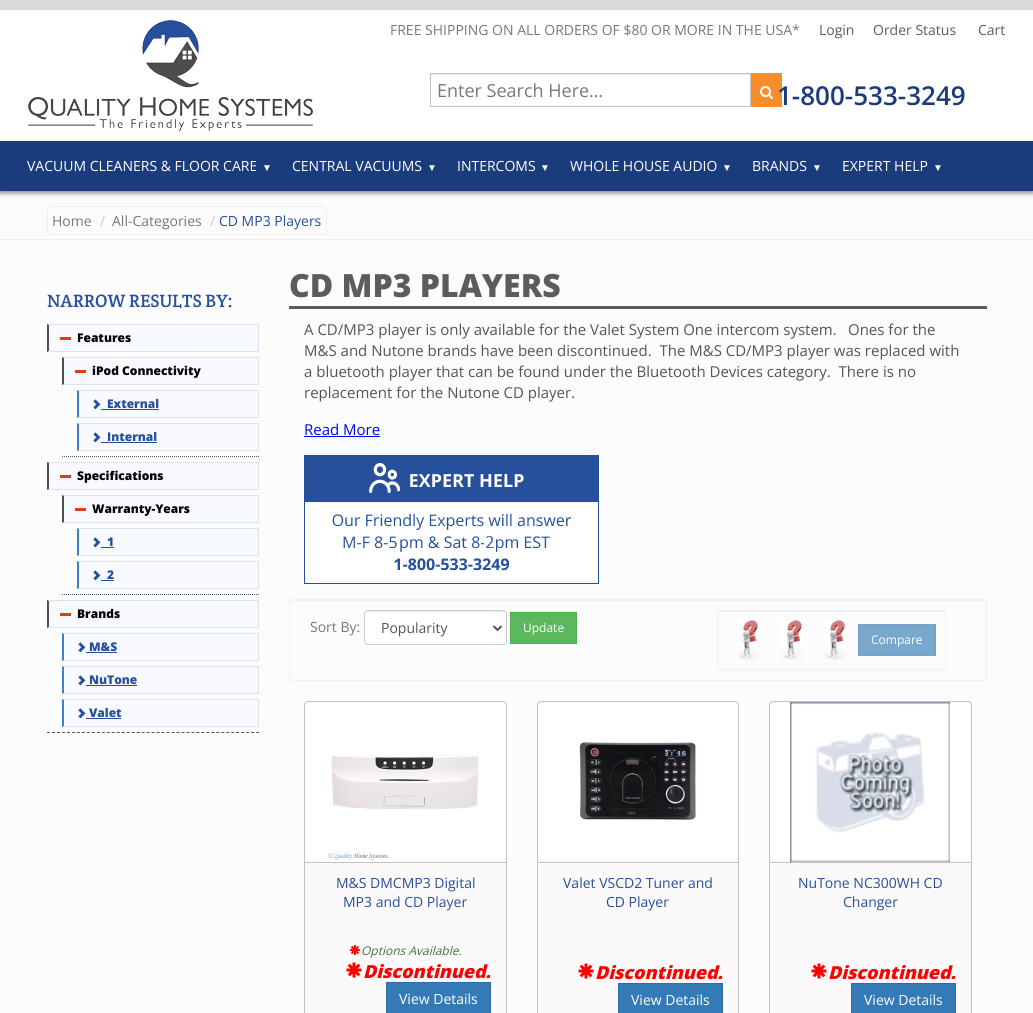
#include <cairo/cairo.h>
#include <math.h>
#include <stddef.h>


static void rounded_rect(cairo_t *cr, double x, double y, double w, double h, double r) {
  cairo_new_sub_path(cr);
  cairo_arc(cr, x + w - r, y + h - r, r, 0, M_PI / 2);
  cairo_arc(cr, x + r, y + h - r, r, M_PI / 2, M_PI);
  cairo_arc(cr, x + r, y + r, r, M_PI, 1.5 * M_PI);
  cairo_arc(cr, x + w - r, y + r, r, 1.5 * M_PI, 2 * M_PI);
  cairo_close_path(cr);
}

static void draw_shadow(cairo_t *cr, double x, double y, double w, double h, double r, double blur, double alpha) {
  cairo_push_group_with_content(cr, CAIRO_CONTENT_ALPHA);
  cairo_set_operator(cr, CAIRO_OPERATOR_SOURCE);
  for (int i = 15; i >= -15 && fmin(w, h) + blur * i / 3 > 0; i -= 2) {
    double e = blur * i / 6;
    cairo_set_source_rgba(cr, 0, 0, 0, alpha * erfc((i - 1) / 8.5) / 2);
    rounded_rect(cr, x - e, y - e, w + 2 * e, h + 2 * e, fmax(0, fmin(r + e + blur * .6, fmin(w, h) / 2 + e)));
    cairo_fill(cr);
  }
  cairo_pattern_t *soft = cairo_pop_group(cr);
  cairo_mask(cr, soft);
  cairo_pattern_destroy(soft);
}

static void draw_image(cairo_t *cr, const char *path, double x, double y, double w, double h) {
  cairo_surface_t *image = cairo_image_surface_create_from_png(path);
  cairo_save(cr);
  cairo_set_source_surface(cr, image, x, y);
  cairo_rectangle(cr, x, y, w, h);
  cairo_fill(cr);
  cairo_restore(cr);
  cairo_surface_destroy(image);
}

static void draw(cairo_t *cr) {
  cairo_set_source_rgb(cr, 252 / 255.0, 252 / 255.0, 252 / 255.0);
  cairo_paint(cr);
  cairo_set_source_rgb(cr, 0, 0, 0);
  draw_shadow(cr, 0, 2, 1033, 191, 0, 2.5, 0.5);
  cairo_set_source_rgb(cr, 1, 1, 1);
  cairo_rectangle(cr, 0, 10, 1033, 131);
  cairo_fill(cr);
  cairo_set_source_rgb(cr, 217 / 255.0, 217 / 255.0, 217 / 255.0);
  cairo_rectangle(cr, 0, 0, 1033, 10);
  cairo_fill(cr);
  draw_image(cr, "images/1.png", 28, 20, 285, 111);
  cairo_set_source_rgb(cr, 236 / 255.0, 236 / 255.0, 236 / 255.0);
  cairo_rectangle(cr, 431, 74, 319, 1);
  cairo_fill(cr);
  cairo_rectangle(cr, 430.5, 73.5, 320, 33);
  cairo_set_source_rgb(cr, 194 / 255.0, 194 / 255.0, 194 / 255.0);
  cairo_set_line_width(cr, 1);
  cairo_stroke(cr);
  cairo_set_source_rgb(cr, 248 / 255.0, 141 / 255.0, 43 / 255.0);
  cairo_rectangle(cr, 751, 73, 31, 34);
  cairo_fill(cr);
  draw_image(cr, "images/2.png", 760, 86, 13, 13);
  cairo_set_source_rgb(cr, 26 / 255.0, 60 / 255.0, 124 / 255.0);
  cairo_rectangle(cr, 0, 141, 1033, 50);
  cairo_fill(cr);
  cairo_set_source_rgb(cr, 238 / 255.0, 238 / 255.0, 238 / 255.0);
  cairo_rectangle(cr, 0, 239, 1033, 1);
  cairo_fill(cr);
  rounded_rect(cr, 47.5, 206.5, 279, 28, 3.5);
  cairo_set_source_rgb(cr, 239 / 255.0, 239 / 255.0, 239 / 255.0);
  cairo_stroke(cr);
  cairo_set_source_rgb(cr, 248 / 255.0, 250 / 255.0, 1);
  cairo_rectangle(cr, 49, 325, 209, 26);
  cairo_fill(cr);
  cairo_set_source_rgb(cr, 216 / 255.0, 66 / 255.0, 14 / 255.0);
  cairo_rectangle(cr, 60, 337, 11, 3);
  cairo_fill(cr);
  cairo_set_source_rgb(cr, 218 / 255.0, 226 / 255.0, 234 / 255.0);
  cairo_new_path(cr);
  cairo_move_to(cr, 47, 324);
  cairo_line_to(cr, 259, 324);
  cairo_line_to(cr, 258, 325);
  cairo_line_to(cr, 49, 325);
  cairo_close_path(cr);
  cairo_fill(cr);
  cairo_rectangle(cr, 258, 324, 1, 28);
  cairo_fill(cr);
  cairo_new_path(cr);
  cairo_move_to(cr, 259, 352);
  cairo_line_to(cr, 47, 352);
  cairo_line_to(cr, 49, 351);
  cairo_line_to(cr, 258, 351);
  cairo_close_path(cr);
  cairo_fill(cr);
  cairo_set_source_rgb(cr, 80 / 255.0, 80 / 255.0, 80 / 255.0);
  cairo_new_path(cr);
  cairo_move_to(cr, 47, 352);
  cairo_line_to(cr, 47, 324);
  cairo_line_to(cr, 49, 325);
  cairo_line_to(cr, 49, 351);
  cairo_close_path(cr);
  cairo_fill(cr);
  cairo_new_path(cr);
  cairo_move_to(cr, 62, 456.5);
  cairo_line_to(cr, 259, 456.5);
  cairo_set_source_rgb(cr, 85 / 255.0, 85 / 255.0, 85 / 255.0);
  cairo_set_dash(cr, (double[]){1, 1}, 2, 0);
  cairo_stroke(cr);
  cairo_set_source_rgb(cr, 248 / 255.0, 250 / 255.0, 1);
  cairo_rectangle(cr, 64, 358, 194, 26);
  cairo_fill(cr);
  cairo_set_source_rgb(cr, 216 / 255.0, 66 / 255.0, 14 / 255.0);
  cairo_rectangle(cr, 75, 370, 11, 3);
  cairo_fill(cr);
  cairo_set_source_rgb(cr, 218 / 255.0, 226 / 255.0, 234 / 255.0);
  cairo_new_path(cr);
  cairo_move_to(cr, 62, 357);
  cairo_line_to(cr, 259, 357);
  cairo_line_to(cr, 258, 358);
  cairo_line_to(cr, 64, 358);
  cairo_close_path(cr);
  cairo_fill(cr);
  cairo_rectangle(cr, 258, 357, 1, 28);
  cairo_fill(cr);
  cairo_new_path(cr);
  cairo_move_to(cr, 259, 385);
  cairo_line_to(cr, 62, 385);
  cairo_line_to(cr, 64, 384);
  cairo_line_to(cr, 258, 384);
  cairo_close_path(cr);
  cairo_fill(cr);
  cairo_set_source_rgb(cr, 80 / 255.0, 80 / 255.0, 80 / 255.0);
  cairo_new_path(cr);
  cairo_move_to(cr, 62, 385);
  cairo_line_to(cr, 62, 357);
  cairo_line_to(cr, 64, 358);
  cairo_line_to(cr, 64, 384);
  cairo_close_path(cr);
  cairo_fill(cr);
  cairo_set_source_rgb(cr, 248 / 255.0, 250 / 255.0, 1);
  cairo_rectangle(cr, 79, 391, 179, 26);
  cairo_fill(cr);
  cairo_set_source_rgb(cr, 218 / 255.0, 226 / 255.0, 234 / 255.0);
  cairo_new_path(cr);
  cairo_move_to(cr, 77, 390);
  cairo_line_to(cr, 259, 390);
  cairo_line_to(cr, 258, 391);
  cairo_line_to(cr, 79, 391);
  cairo_close_path(cr);
  cairo_fill(cr);
  cairo_rectangle(cr, 258, 390, 1, 28);
  cairo_fill(cr);
  cairo_new_path(cr);
  cairo_move_to(cr, 259, 418);
  cairo_line_to(cr, 77, 418);
  cairo_line_to(cr, 79, 417);
  cairo_line_to(cr, 258, 417);
  cairo_close_path(cr);
  cairo_fill(cr);
  cairo_set_source_rgb(cr, 57 / 255.0, 131 / 255.0, 194 / 255.0);
  cairo_new_path(cr);
  cairo_move_to(cr, 77, 418);
  cairo_line_to(cr, 77, 390);
  cairo_line_to(cr, 79, 391);
  cairo_line_to(cr, 79, 417);
  cairo_close_path(cr);
  cairo_fill(cr);
  draw_image(cr, "images/3.png", 93, 399, 8, 11);
  cairo_set_source_rgb(cr, 38 / 255.0, 80 / 255.0, 155 / 255.0);
  cairo_rectangle(cr, 101, 409, 58, 1);
  cairo_fill(cr);
  cairo_set_source_rgb(cr, 248 / 255.0, 250 / 255.0, 1);
  cairo_rectangle(cr, 79, 424, 179, 26);
  cairo_fill(cr);
  cairo_set_source_rgb(cr, 218 / 255.0, 226 / 255.0, 234 / 255.0);
  cairo_new_path(cr);
  cairo_move_to(cr, 77, 423);
  cairo_line_to(cr, 259, 423);
  cairo_line_to(cr, 258, 424);
  cairo_line_to(cr, 79, 424);
  cairo_close_path(cr);
  cairo_fill(cr);
  cairo_rectangle(cr, 258, 423, 1, 28);
  cairo_fill(cr);
  cairo_new_path(cr);
  cairo_move_to(cr, 259, 451);
  cairo_line_to(cr, 77, 451);
  cairo_line_to(cr, 79, 450);
  cairo_line_to(cr, 258, 450);
  cairo_close_path(cr);
  cairo_fill(cr);
  cairo_set_source_rgb(cr, 57 / 255.0, 131 / 255.0, 194 / 255.0);
  cairo_new_path(cr);
  cairo_move_to(cr, 77, 451);
  cairo_line_to(cr, 77, 423);
  cairo_line_to(cr, 79, 424);
  cairo_line_to(cr, 79, 450);
  cairo_close_path(cr);
  cairo_fill(cr);
  draw_image(cr, "images/3.png", 93, 432, 8, 11);
  cairo_set_source_rgb(cr, 38 / 255.0, 80 / 255.0, 155 / 255.0);
  cairo_rectangle(cr, 101, 442, 56, 1);
  cairo_fill(cr);
  cairo_set_source_rgb(cr, 248 / 255.0, 250 / 255.0, 1);
  cairo_rectangle(cr, 49, 463, 209, 26);
  cairo_fill(cr);
  cairo_set_source_rgb(cr, 216 / 255.0, 66 / 255.0, 14 / 255.0);
  cairo_rectangle(cr, 60, 475, 11, 3);
  cairo_fill(cr);
  cairo_set_source_rgb(cr, 218 / 255.0, 226 / 255.0, 234 / 255.0);
  cairo_new_path(cr);
  cairo_move_to(cr, 47, 462);
  cairo_line_to(cr, 259, 462);
  cairo_line_to(cr, 258, 463);
  cairo_line_to(cr, 49, 463);
  cairo_close_path(cr);
  cairo_fill(cr);
  cairo_rectangle(cr, 258, 462, 1, 28);
  cairo_fill(cr);
  cairo_new_path(cr);
  cairo_move_to(cr, 259, 490);
  cairo_line_to(cr, 47, 490);
  cairo_line_to(cr, 49, 489);
  cairo_line_to(cr, 258, 489);
  cairo_close_path(cr);
  cairo_fill(cr);
  cairo_set_source_rgb(cr, 80 / 255.0, 80 / 255.0, 80 / 255.0);
  cairo_new_path(cr);
  cairo_move_to(cr, 47, 490);
  cairo_line_to(cr, 47, 462);
  cairo_line_to(cr, 49, 463);
  cairo_line_to(cr, 49, 489);
  cairo_close_path(cr);
  cairo_fill(cr);
  cairo_new_path(cr);
  cairo_move_to(cr, 62, 594.5);
  cairo_line_to(cr, 259, 594.5);
  cairo_set_source_rgb(cr, 85 / 255.0, 85 / 255.0, 85 / 255.0);
  cairo_stroke(cr);
  cairo_set_source_rgb(cr, 248 / 255.0, 250 / 255.0, 1);
  cairo_rectangle(cr, 64, 496, 194, 26);
  cairo_fill(cr);
  cairo_set_source_rgb(cr, 216 / 255.0, 66 / 255.0, 14 / 255.0);
  cairo_rectangle(cr, 75, 508, 11, 3);
  cairo_fill(cr);
  cairo_set_source_rgb(cr, 218 / 255.0, 226 / 255.0, 234 / 255.0);
  cairo_new_path(cr);
  cairo_move_to(cr, 62, 495);
  cairo_line_to(cr, 259, 495);
  cairo_line_to(cr, 258, 496);
  cairo_line_to(cr, 64, 496);
  cairo_close_path(cr);
  cairo_fill(cr);
  cairo_rectangle(cr, 258, 495, 1, 28);
  cairo_fill(cr);
  cairo_new_path(cr);
  cairo_move_to(cr, 259, 523);
  cairo_line_to(cr, 62, 523);
  cairo_line_to(cr, 64, 522);
  cairo_line_to(cr, 258, 522);
  cairo_close_path(cr);
  cairo_fill(cr);
  cairo_set_source_rgb(cr, 80 / 255.0, 80 / 255.0, 80 / 255.0);
  cairo_new_path(cr);
  cairo_move_to(cr, 62, 523);
  cairo_line_to(cr, 62, 495);
  cairo_line_to(cr, 64, 496);
  cairo_line_to(cr, 64, 522);
  cairo_close_path(cr);
  cairo_fill(cr);
  cairo_set_source_rgb(cr, 248 / 255.0, 250 / 255.0, 1);
  cairo_rectangle(cr, 79, 529, 179, 26);
  cairo_fill(cr);
  cairo_set_source_rgb(cr, 218 / 255.0, 226 / 255.0, 234 / 255.0);
  cairo_new_path(cr);
  cairo_move_to(cr, 77, 528);
  cairo_line_to(cr, 259, 528);
  cairo_line_to(cr, 258, 529);
  cairo_line_to(cr, 79, 529);
  cairo_close_path(cr);
  cairo_fill(cr);
  cairo_rectangle(cr, 258, 528, 1, 28);
  cairo_fill(cr);
  cairo_new_path(cr);
  cairo_move_to(cr, 259, 556);
  cairo_line_to(cr, 77, 556);
  cairo_line_to(cr, 79, 555);
  cairo_line_to(cr, 258, 555);
  cairo_close_path(cr);
  cairo_fill(cr);
  cairo_set_source_rgb(cr, 57 / 255.0, 131 / 255.0, 194 / 255.0);
  cairo_new_path(cr);
  cairo_move_to(cr, 77, 556);
  cairo_line_to(cr, 77, 528);
  cairo_line_to(cr, 79, 529);
  cairo_line_to(cr, 79, 555);
  cairo_close_path(cr);
  cairo_fill(cr);
  draw_image(cr, "images/3.png", 93, 537, 8, 11);
  cairo_set_source_rgb(cr, 38 / 255.0, 80 / 255.0, 155 / 255.0);
  cairo_rectangle(cr, 101, 547, 13, 1);
  cairo_fill(cr);
  cairo_set_source_rgb(cr, 248 / 255.0, 250 / 255.0, 1);
  cairo_rectangle(cr, 79, 562, 179, 26);
  cairo_fill(cr);
  cairo_set_source_rgb(cr, 218 / 255.0, 226 / 255.0, 234 / 255.0);
  cairo_new_path(cr);
  cairo_move_to(cr, 77, 561);
  cairo_line_to(cr, 259, 561);
  cairo_line_to(cr, 258, 562);
  cairo_line_to(cr, 79, 562);
  cairo_close_path(cr);
  cairo_fill(cr);
  cairo_rectangle(cr, 258, 561, 1, 28);
  cairo_fill(cr);
  cairo_new_path(cr);
  cairo_move_to(cr, 259, 589);
  cairo_line_to(cr, 77, 589);
  cairo_line_to(cr, 79, 588);
  cairo_line_to(cr, 258, 588);
  cairo_close_path(cr);
  cairo_fill(cr);
  cairo_set_source_rgb(cr, 57 / 255.0, 131 / 255.0, 194 / 255.0);
  cairo_new_path(cr);
  cairo_move_to(cr, 77, 589);
  cairo_line_to(cr, 77, 561);
  cairo_line_to(cr, 79, 562);
  cairo_line_to(cr, 79, 588);
  cairo_close_path(cr);
  cairo_fill(cr);
  draw_image(cr, "images/3.png", 93, 570, 8, 11);
  cairo_set_source_rgb(cr, 38 / 255.0, 80 / 255.0, 155 / 255.0);
  cairo_rectangle(cr, 101, 580, 13, 1);
  cairo_fill(cr);
  cairo_new_path(cr);
  cairo_move_to(cr, 47, 732.5);
  cairo_line_to(cr, 259, 732.5);
  cairo_set_source_rgb(cr, 85 / 255.0, 85 / 255.0, 85 / 255.0);
  cairo_set_dash(cr, (double[]){3, 1.98}, 2, 0);
  cairo_stroke(cr);
  cairo_set_source_rgb(cr, 248 / 255.0, 250 / 255.0, 1);
  cairo_rectangle(cr, 49, 601, 209, 26);
  cairo_fill(cr);
  cairo_set_source_rgb(cr, 216 / 255.0, 66 / 255.0, 14 / 255.0);
  cairo_rectangle(cr, 60, 613, 11, 3);
  cairo_fill(cr);
  cairo_set_source_rgb(cr, 218 / 255.0, 226 / 255.0, 234 / 255.0);
  cairo_new_path(cr);
  cairo_move_to(cr, 47, 600);
  cairo_line_to(cr, 259, 600);
  cairo_line_to(cr, 258, 601);
  cairo_line_to(cr, 49, 601);
  cairo_close_path(cr);
  cairo_fill(cr);
  cairo_rectangle(cr, 258, 600, 1, 28);
  cairo_fill(cr);
  cairo_new_path(cr);
  cairo_move_to(cr, 259, 628);
  cairo_line_to(cr, 47, 628);
  cairo_line_to(cr, 49, 627);
  cairo_line_to(cr, 258, 627);
  cairo_close_path(cr);
  cairo_fill(cr);
  cairo_set_source_rgb(cr, 80 / 255.0, 80 / 255.0, 80 / 255.0);
  cairo_new_path(cr);
  cairo_move_to(cr, 47, 628);
  cairo_line_to(cr, 47, 600);
  cairo_line_to(cr, 49, 601);
  cairo_line_to(cr, 49, 627);
  cairo_close_path(cr);
  cairo_fill(cr);
  cairo_set_source_rgb(cr, 248 / 255.0, 250 / 255.0, 1);
  cairo_rectangle(cr, 64, 634, 194, 26);
  cairo_fill(cr);
  cairo_set_source_rgb(cr, 218 / 255.0, 226 / 255.0, 234 / 255.0);
  cairo_new_path(cr);
  cairo_move_to(cr, 62, 633);
  cairo_line_to(cr, 259, 633);
  cairo_line_to(cr, 258, 634);
  cairo_line_to(cr, 64, 634);
  cairo_close_path(cr);
  cairo_fill(cr);
  cairo_rectangle(cr, 258, 633, 1, 28);
  cairo_fill(cr);
  cairo_new_path(cr);
  cairo_move_to(cr, 259, 661);
  cairo_line_to(cr, 62, 661);
  cairo_line_to(cr, 64, 660);
  cairo_line_to(cr, 258, 660);
  cairo_close_path(cr);
  cairo_fill(cr);
  cairo_set_source_rgb(cr, 57 / 255.0, 131 / 255.0, 194 / 255.0);
  cairo_new_path(cr);
  cairo_move_to(cr, 62, 661);
  cairo_line_to(cr, 62, 633);
  cairo_line_to(cr, 64, 634);
  cairo_line_to(cr, 64, 660);
  cairo_close_path(cr);
  cairo_fill(cr);
  draw_image(cr, "images/3.png", 78, 642, 8, 11);
  cairo_set_source_rgb(cr, 38 / 255.0, 80 / 255.0, 155 / 255.0);
  cairo_rectangle(cr, 86, 652, 31, 1);
  cairo_fill(cr);
  cairo_set_source_rgb(cr, 248 / 255.0, 250 / 255.0, 1);
  cairo_rectangle(cr, 64, 667, 194, 26);
  cairo_fill(cr);
  cairo_set_source_rgb(cr, 218 / 255.0, 226 / 255.0, 234 / 255.0);
  cairo_new_path(cr);
  cairo_move_to(cr, 62, 666);
  cairo_line_to(cr, 259, 666);
  cairo_line_to(cr, 258, 667);
  cairo_line_to(cr, 64, 667);
  cairo_close_path(cr);
  cairo_fill(cr);
  cairo_rectangle(cr, 258, 666, 1, 28);
  cairo_fill(cr);
  cairo_new_path(cr);
  cairo_move_to(cr, 259, 694);
  cairo_line_to(cr, 62, 694);
  cairo_line_to(cr, 64, 693);
  cairo_line_to(cr, 258, 693);
  cairo_close_path(cr);
  cairo_fill(cr);
  cairo_set_source_rgb(cr, 57 / 255.0, 131 / 255.0, 194 / 255.0);
  cairo_new_path(cr);
  cairo_move_to(cr, 62, 694);
  cairo_line_to(cr, 62, 666);
  cairo_line_to(cr, 64, 667);
  cairo_line_to(cr, 64, 693);
  cairo_close_path(cr);
  cairo_fill(cr);
  draw_image(cr, "images/3.png", 78, 675, 8, 11);
  cairo_set_source_rgb(cr, 38 / 255.0, 80 / 255.0, 155 / 255.0);
  cairo_rectangle(cr, 86, 685, 51, 1);
  cairo_fill(cr);
  cairo_set_source_rgb(cr, 248 / 255.0, 250 / 255.0, 1);
  cairo_rectangle(cr, 64, 700, 194, 26);
  cairo_fill(cr);
  cairo_set_source_rgb(cr, 218 / 255.0, 226 / 255.0, 234 / 255.0);
  cairo_new_path(cr);
  cairo_move_to(cr, 62, 699);
  cairo_line_to(cr, 259, 699);
  cairo_line_to(cr, 258, 700);
  cairo_line_to(cr, 64, 700);
  cairo_close_path(cr);
  cairo_fill(cr);
  cairo_rectangle(cr, 258, 699, 1, 28);
  cairo_fill(cr);
  cairo_new_path(cr);
  cairo_move_to(cr, 259, 727);
  cairo_line_to(cr, 62, 727);
  cairo_line_to(cr, 64, 726);
  cairo_line_to(cr, 258, 726);
  cairo_close_path(cr);
  cairo_fill(cr);
  cairo_set_source_rgb(cr, 57 / 255.0, 131 / 255.0, 194 / 255.0);
  cairo_new_path(cr);
  cairo_move_to(cr, 62, 727);
  cairo_line_to(cr, 62, 699);
  cairo_line_to(cr, 64, 700);
  cairo_line_to(cr, 64, 726);
  cairo_close_path(cr);
  cairo_fill(cr);
  draw_image(cr, "images/3.png", 78, 708, 8, 11);
  cairo_set_source_rgb(cr, 38 / 255.0, 80 / 255.0, 155 / 255.0);
  cairo_rectangle(cr, 86, 718, 35, 1);
  cairo_fill(cr);
  cairo_set_source_rgb(cr, 92 / 255.0, 92 / 255.0, 92 / 255.0);
  cairo_rectangle(cr, 289, 306, 698, 3);
  cairo_fill(cr);
  cairo_set_source_rgb(cr, 0, 0, 1);
  cairo_rectangle(cr, 304, 436, 76, 1);
  cairo_fill(cr);
  draw_image(cr, "images/4.png", 304, 455, 295, 129);
  cairo_set_source_rgb(cr, 239 / 255.0, 239 / 255.0, 239 / 255.0);
  cairo_new_path(cr);
  cairo_move_to(cr, 293, 601);
  cairo_line_to(cr, 983, 601);
  cairo_curve_to(cr, 985, 601, 986, 602, 986, 604);
  cairo_curve_to(cr, 986, 602, 985, 600, 983, 600);
  cairo_line_to(cr, 293, 600);
  cairo_curve_to(cr, 291, 600, 290, 602, 290, 604);
  cairo_curve_to(cr, 290, 602, 291, 601, 293, 601);
  cairo_close_path(cr);
  cairo_fill(cr);
  rounded_rect(cr, 289.5, 599.5, 697, 81, 3.5);
  cairo_set_dash(cr, NULL, 0, 0);
  cairo_stroke(cr);
  cairo_set_source_rgb(cr, 1, 1, 1);
  rounded_rect(cr, 364, 610, 143, 35, 4);
  cairo_fill(cr);
  cairo_set_source_rgb(cr, 236 / 255.0, 236 / 255.0, 236 / 255.0);
  cairo_new_path(cr);
  cairo_move_to(cr, 368, 612);
  cairo_line_to(cr, 503, 612);
  cairo_curve_to(cr, 505, 612, 506, 613, 506, 615);
  cairo_line_to(cr, 506, 614);
  cairo_curve_to(cr, 506, 612, 505, 611, 503, 611);
  cairo_line_to(cr, 368, 611);
  cairo_curve_to(cr, 366, 611, 365, 612, 365, 614);
  cairo_line_to(cr, 365, 615);
  cairo_curve_to(cr, 365, 613, 366, 612, 368, 612);
  cairo_close_path(cr);
  cairo_fill(cr);
  rounded_rect(cr, 364.5, 610.5, 142, 34, 3.5);
  cairo_set_source_rgb(cr, 204 / 255.0, 204 / 255.0, 204 / 255.0);
  cairo_stroke(cr);
  cairo_new_path(cr);
  cairo_move_to(cr, 493.5, 626);
  cairo_line_to(cr, 497.5, 630);
  cairo_line_to(cr, 501.5, 626);
  cairo_set_source_rgb(cr, 85 / 255.0, 85 / 255.0, 85 / 255.0);
  cairo_set_line_width(cr, 2);
  cairo_stroke(cr);
  cairo_set_source_rgb(cr, 92 / 255.0, 184 / 255.0, 92 / 255.0);
  cairo_rectangle(cr, 510.5, 612.5, 66, 31);
  cairo_fill_preserve(cr);
  cairo_set_source_rgb(cr, 76 / 255.0, 174 / 255.0, 76 / 255.0);
  cairo_set_line_width(cr, 1);
  cairo_stroke(cr);
  cairo_set_source_rgb(cr, 239 / 255.0, 239 / 255.0, 239 / 255.0);
  cairo_new_path(cr);
  cairo_move_to(cr, 720, 612);
  cairo_line_to(cr, 943, 612);
  cairo_curve_to(cr, 944, 612, 945, 613, 945, 614);
  cairo_curve_to(cr, 945, 613, 945, 611, 943, 611);
  cairo_line_to(cr, 720, 611);
  cairo_line_to(cr, 719, 612);
  cairo_line_to(cr, 718, 614);
  cairo_curve_to(cr, 718, 613, 719, 612, 720, 612);
  cairo_close_path(cr);
  cairo_fill(cr);
  rounded_rect(cr, 717.5, 610.5, 228, 59, 2.5);
  cairo_stroke(cr);
  draw_image(cr, "images/5.png", 737, 620, 22, 40);
  draw_image(cr, "images/5.png", 781, 620, 22, 40);
  draw_image(cr, "images/5.png", 824, 620, 22, 40);
  cairo_set_source_rgb(cr, 121 / 255.0, 168 / 255.0, 207 / 255.0);
  cairo_rectangle(cr, 858.5, 624.5, 77, 31);
  cairo_fill_preserve(cr);
  cairo_set_source_rgb(cr, 118 / 255.0, 159 / 255.0, 195 / 255.0);
  cairo_stroke(cr);
  cairo_set_source_rgb(cr, 1, 1, 1);
  rounded_rect(cr, 304.5, 701.5, 202, 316, 3.5);
  cairo_fill_preserve(cr);
  cairo_set_source_rgb(cr, 194 / 255.0, 194 / 255.0, 194 / 255.0);
  cairo_stroke(cr);
  draw_image(cr, "images/6.png", 328, 754, 151, 108);
  cairo_set_source_rgb(cr, 251 / 255.0, 249 / 255.0, 249 / 255.0);
  cairo_rectangle(cr, 305, 863, 201, 150);
  cairo_fill(cr);
  cairo_set_source_rgb(cr, 194 / 255.0, 194 / 255.0, 194 / 255.0);
  cairo_rectangle(cr, 305, 862, 201, 1);
  cairo_fill(cr);
  draw_image(cr, "images/7.png", 350, 945, 10, 10);
  draw_image(cr, "images/8.png", 346, 962, 16, 16);
  cairo_set_source_rgb(cr, 51 / 255.0, 122 / 255.0, 183 / 255.0);
  cairo_rectangle(cr, 386.5, 982.5, 104, 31);
  cairo_fill_preserve(cr);
  cairo_set_source_rgb(cr, 46 / 255.0, 109 / 255.0, 164 / 255.0);
  cairo_stroke(cr);
  cairo_set_source_rgb(cr, 1, 1, 1);
  rounded_rect(cr, 537.5, 701.5, 201, 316, 3.5);
  cairo_fill_preserve(cr);
  cairo_set_source_rgb(cr, 194 / 255.0, 194 / 255.0, 194 / 255.0);
  cairo_stroke(cr);
  draw_image(cr, "images/9.png", 579, 742, 117, 78);
  cairo_set_source_rgb(cr, 251 / 255.0, 249 / 255.0, 249 / 255.0);
  cairo_rectangle(cr, 538, 863, 200, 150);
  cairo_fill(cr);
  cairo_set_source_rgb(cr, 194 / 255.0, 194 / 255.0, 194 / 255.0);
  cairo_rectangle(cr, 538, 862, 200, 1);
  cairo_fill(cr);
  draw_image(cr, "images/8.png", 578, 963, 16, 16);
  cairo_set_source_rgb(cr, 51 / 255.0, 122 / 255.0, 183 / 255.0);
  cairo_rectangle(cr, 618.5, 983.5, 104, 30);
  cairo_fill_preserve(cr);
  cairo_set_source_rgb(cr, 46 / 255.0, 109 / 255.0, 164 / 255.0);
  cairo_stroke(cr);
  cairo_set_source_rgb(cr, 1, 1, 1);
  rounded_rect(cr, 769.5, 701.5, 202, 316, 3.5);
  cairo_fill_preserve(cr);
  cairo_set_source_rgb(cr, 194 / 255.0, 194 / 255.0, 194 / 255.0);
  cairo_stroke(cr);
  draw_image(cr, "images/10.png", 790, 702, 160, 160);
  cairo_set_source_rgb(cr, 251 / 255.0, 249 / 255.0, 249 / 255.0);
  cairo_rectangle(cr, 770, 863, 201, 150);
  cairo_fill(cr);
  cairo_set_source_rgb(cr, 194 / 255.0, 194 / 255.0, 194 / 255.0);
  cairo_rectangle(cr, 770, 862, 201, 1);
  cairo_fill(cr);
  draw_image(cr, "images/8.png", 811, 963, 16, 16);
  cairo_set_source_rgb(cr, 51 / 255.0, 122 / 255.0, 183 / 255.0);
  cairo_rectangle(cr, 851.5, 983.5, 104, 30);
  cairo_fill_preserve(cr);
  cairo_set_source_rgb(cr, 46 / 255.0, 109 / 255.0, 164 / 255.0);
  cairo_stroke(cr);
  cairo_select_font_face(cr, "Open Sans", CAIRO_FONT_SLANT_NORMAL, CAIRO_FONT_WEIGHT_NORMAL);
  cairo_set_font_size(cr, 14);
  cairo_set_source_rgb(cr, 119 / 255.0, 119 / 255.0, 119 / 255.0);
  cairo_move_to(cr, 390, 35);
  cairo_show_text(cr, "FREE SHIPPING ON ALL ORDERS OF $80 OR MORE IN THE USA*");
  cairo_set_source_rgb(cr, 92 / 255.0, 92 / 255.0, 92 / 255.0);
  cairo_move_to(cr, 819, 35);
  cairo_show_text(cr, "Login");
  cairo_move_to(cr, 873, 35);
  cairo_show_text(cr, "Order Status");
  cairo_move_to(cr, 978, 35);
  cairo_show_text(cr, "Cart");
  cairo_set_font_size(cr, 18);
  cairo_set_source_rgb(cr, 119 / 255.0, 119 / 255.0, 119 / 255.0);
  cairo_move_to(cr, 437, 97);
  cairo_show_text(cr, "Enter Search Here…");
  cairo_select_font_face(cr, "Open Sans SemiBold", CAIRO_FONT_SLANT_NORMAL, CAIRO_FONT_WEIGHT_NORMAL);
  cairo_set_font_size(cr, 26);
  cairo_set_source_rgb(cr, 26 / 255.0, 60 / 255.0, 124 / 255.0);
  cairo_move_to(cr, 777, 105);
  cairo_show_text(cr, "1-800-533-3249");
  cairo_select_font_face(cr, "Open Sans", CAIRO_FONT_SLANT_NORMAL, CAIRO_FONT_WEIGHT_NORMAL);
  cairo_set_font_size(cr, 14);
  cairo_set_source_rgb(cr, 1, 1, 1);
  cairo_move_to(cr, 27, 171);
  cairo_show_text(cr, "VACUUM CLEANERS & FLOOR CARE");
  cairo_select_font_face(cr, "Liberation Sans", CAIRO_FONT_SLANT_NORMAL, CAIRO_FONT_WEIGHT_NORMAL);
  cairo_set_font_size(cr, 10);
  cairo_move_to(cr, 262, 171);
  cairo_show_text(cr, "▼");
  cairo_select_font_face(cr, "Open Sans", CAIRO_FONT_SLANT_NORMAL, CAIRO_FONT_WEIGHT_NORMAL);
  cairo_set_font_size(cr, 14);
  cairo_move_to(cr, 292, 171);
  cairo_show_text(cr, "CENTRAL VACUUMS");
  cairo_select_font_face(cr, "Liberation Sans", CAIRO_FONT_SLANT_NORMAL, CAIRO_FONT_WEIGHT_NORMAL);
  cairo_set_font_size(cr, 10);
  cairo_move_to(cr, 427, 171);
  cairo_show_text(cr, "▼");
  cairo_select_font_face(cr, "Open Sans", CAIRO_FONT_SLANT_NORMAL, CAIRO_FONT_WEIGHT_NORMAL);
  cairo_set_font_size(cr, 14);
  cairo_move_to(cr, 457, 171);
  cairo_show_text(cr, "INTERCOMS");
  cairo_select_font_face(cr, "Liberation Sans", CAIRO_FONT_SLANT_NORMAL, CAIRO_FONT_WEIGHT_NORMAL);
  cairo_set_font_size(cr, 10);
  cairo_move_to(cr, 540, 171);
  cairo_show_text(cr, "▼");
  cairo_select_font_face(cr, "Open Sans", CAIRO_FONT_SLANT_NORMAL, CAIRO_FONT_WEIGHT_NORMAL);
  cairo_set_font_size(cr, 14);
  cairo_move_to(cr, 570, 171);
  cairo_show_text(cr, "WHOLE HOUSE AUDIO");
  cairo_select_font_face(cr, "Liberation Sans", CAIRO_FONT_SLANT_NORMAL, CAIRO_FONT_WEIGHT_NORMAL);
  cairo_set_font_size(cr, 10);
  cairo_move_to(cr, 722, 171);
  cairo_show_text(cr, "▼");
  cairo_select_font_face(cr, "Open Sans", CAIRO_FONT_SLANT_NORMAL, CAIRO_FONT_WEIGHT_NORMAL);
  cairo_set_font_size(cr, 14);
  cairo_move_to(cr, 752, 171);
  cairo_show_text(cr, "BRANDS");
  cairo_select_font_face(cr, "Liberation Sans", CAIRO_FONT_SLANT_NORMAL, CAIRO_FONT_WEIGHT_NORMAL);
  cairo_set_font_size(cr, 10);
  cairo_move_to(cr, 812, 171);
  cairo_show_text(cr, "▼");
  cairo_select_font_face(cr, "Open Sans", CAIRO_FONT_SLANT_NORMAL, CAIRO_FONT_WEIGHT_NORMAL);
  cairo_set_font_size(cr, 14);
  cairo_move_to(cr, 842, 171);
  cairo_show_text(cr, "EXPERT HELP");
  cairo_select_font_face(cr, "Liberation Sans", CAIRO_FONT_SLANT_NORMAL, CAIRO_FONT_WEIGHT_NORMAL);
  cairo_set_font_size(cr, 10);
  cairo_move_to(cr, 933, 171);
  cairo_show_text(cr, "▼");
  cairo_select_font_face(cr, "Open Sans", CAIRO_FONT_SLANT_NORMAL, CAIRO_FONT_WEIGHT_NORMAL);
  cairo_set_font_size(cr, 14);
  cairo_set_source_rgb(cr, 119 / 255.0, 119 / 255.0, 119 / 255.0);
  cairo_move_to(cr, 52, 226);
  cairo_show_text(cr, "Home");
  cairo_set_source_rgb(cr, 204 / 255.0, 204 / 255.0, 204 / 255.0);
  cairo_move_to(cr, 100, 226);
  cairo_show_text(cr, "/");
  cairo_set_source_rgb(cr, 119 / 255.0, 119 / 255.0, 119 / 255.0);
  cairo_move_to(cr, 112, 226);
  cairo_show_text(cr, "All-Categories");
  cairo_set_source_rgb(cr, 204 / 255.0, 204 / 255.0, 204 / 255.0);
  cairo_move_to(cr, 210, 226);
  cairo_show_text(cr, "/");
  cairo_set_source_rgb(cr, 38 / 255.0, 80 / 255.0, 155 / 255.0);
  cairo_move_to(cr, 219, 226);
  cairo_show_text(cr, "CD MP3 Players");
  cairo_select_font_face(cr, "Crete Round", CAIRO_FONT_SLANT_NORMAL, CAIRO_FONT_WEIGHT_NORMAL);
  cairo_set_font_size(cr, 18);
  cairo_move_to(cr, 47, 307);
  cairo_show_text(cr, "NARROW RESULTS BY:");
  cairo_select_font_face(cr, "Open Sans ExtraBold", CAIRO_FONT_SLANT_NORMAL, CAIRO_FONT_WEIGHT_NORMAL);
  cairo_set_font_size(cr, 12);
  cairo_set_source_rgb(cr, 0, 0, 0);
  cairo_move_to(cr, 77, 342);
  cairo_show_text(cr, "Features");
  cairo_move_to(cr, 92, 375);
  cairo_show_text(cr, "iPod Connectivity");
  cairo_set_source_rgb(cr, 38 / 255.0, 80 / 255.0, 155 / 255.0);
  cairo_move_to(cr, 107, 408);
  cairo_show_text(cr, "External");
  cairo_move_to(cr, 107, 441);
  cairo_show_text(cr, "Internal");
  cairo_set_source_rgb(cr, 0, 0, 0);
  cairo_move_to(cr, 77, 480);
  cairo_show_text(cr, "Specifications");
  cairo_move_to(cr, 92, 513);
  cairo_show_text(cr, "Warranty-Years");
  cairo_set_source_rgb(cr, 38 / 255.0, 80 / 255.0, 155 / 255.0);
  cairo_move_to(cr, 107, 546);
  cairo_show_text(cr, "1");
  cairo_move_to(cr, 107, 579);
  cairo_show_text(cr, "2");
  cairo_set_source_rgb(cr, 0, 0, 0);
  cairo_move_to(cr, 77, 618);
  cairo_show_text(cr, "Brands");
  cairo_set_source_rgb(cr, 38 / 255.0, 80 / 255.0, 155 / 255.0);
  cairo_move_to(cr, 89, 651);
  cairo_show_text(cr, "M&S");
  cairo_move_to(cr, 89, 684);
  cairo_show_text(cr, "NuTone");
  cairo_move_to(cr, 89, 717);
  cairo_show_text(cr, "Valet");
  cairo_set_font_size(cr, 32);
  cairo_set_source_rgb(cr, 92 / 255.0, 92 / 255.0, 92 / 255.0);
  cairo_move_to(cr, 289, 297);
  cairo_show_text(cr, "CD MP3 PLAYERS");
  cairo_select_font_face(cr, "Open Sans", CAIRO_FONT_SLANT_NORMAL, CAIRO_FONT_WEIGHT_NORMAL);
  cairo_set_font_size(cr, 15);
  cairo_set_source_rgb(cr, 85 / 255.0, 85 / 255.0, 85 / 255.0);
  cairo_move_to(cr, 304, 335);
  cairo_show_text(cr, "A CD/MP3 player is only available for the Valet System One intercom system.");
  cairo_move_to(cr, 848, 335);
  cairo_show_text(cr, "Ones for the");
  cairo_move_to(cr, 304, 356);
  cairo_show_text(cr, "M&S and Nutone brands have been discontinued.  The M&S CD/MP3 player was replaced with");
  cairo_move_to(cr, 304, 377);
  cairo_show_text(cr, "a bluetooth player that can be found under the Bluetooth Devices category.  There is no");
  cairo_move_to(cr, 304, 398);
  cairo_show_text(cr, "replacement for the Nutone CD player.");
  cairo_set_source_rgb(cr, 0, 0, 1);
  cairo_move_to(cr, 304, 435);
  cairo_show_text(cr, "Read More");
  cairo_set_font_size(cr, 14);
  cairo_set_source_rgb(cr, 119 / 255.0, 119 / 255.0, 119 / 255.0);
  cairo_move_to(cr, 310, 632);
  cairo_show_text(cr, "Sort By:");
  cairo_set_source_rgb(cr, 85 / 255.0, 85 / 255.0, 85 / 255.0);
  cairo_move_to(cr, 381, 633);
  cairo_show_text(cr, "Popularity");
  cairo_set_font_size(cr, 12);
  cairo_set_source_rgb(cr, 1, 1, 1);
  cairo_move_to(cr, 523, 632);
  cairo_show_text(cr, "Update");
  cairo_move_to(cr, 871, 644);
  cairo_show_text(cr, "Compare");
  cairo_set_font_size(cr, 14);
  cairo_set_source_rgb(cr, 38 / 255.0, 80 / 255.0, 155 / 255.0);
  cairo_move_to(cr, 336, 888);
  cairo_show_text(cr, "M&S DMCMP3 Digital");
  cairo_move_to(cr, 343, 907);
  cairo_show_text(cr, "MP3 and CD Player");
  cairo_select_font_face(cr, "Open Sans", CAIRO_FONT_SLANT_ITALIC, CAIRO_FONT_WEIGHT_NORMAL);
  cairo_set_font_size(cr, 12);
  cairo_set_source_rgb(cr, 60 / 255.0, 118 / 255.0, 61 / 255.0);
  cairo_move_to(cr, 361, 955);
  cairo_show_text(cr, "Options Available.");
  cairo_select_font_face(cr, "Open Sans ExtraBold", CAIRO_FONT_SLANT_ITALIC, CAIRO_FONT_WEIGHT_NORMAL);
  cairo_set_font_size(cr, 18);
  cairo_set_source_rgb(cr, 1, 0, 0);
  cairo_move_to(cr, 363, 978);
  cairo_show_text(cr, "Discontinued.");
  cairo_select_font_face(cr, "Open Sans", CAIRO_FONT_SLANT_NORMAL, CAIRO_FONT_WEIGHT_NORMAL);
  cairo_set_font_size(cr, 14);
  cairo_set_source_rgb(cr, 1, 1, 1);
  cairo_move_to(cr, 399, 1004);
  cairo_show_text(cr, "View Details");
  cairo_set_source_rgb(cr, 38 / 255.0, 80 / 255.0, 155 / 255.0);
  cairo_move_to(cr, 563, 888);
  cairo_show_text(cr, "Valet VSCD2 Tuner and");
  cairo_move_to(cr, 606, 907);
  cairo_show_text(cr, "CD Player");
  cairo_select_font_face(cr, "Open Sans ExtraBold", CAIRO_FONT_SLANT_ITALIC, CAIRO_FONT_WEIGHT_NORMAL);
  cairo_set_font_size(cr, 18);
  cairo_set_source_rgb(cr, 1, 0, 0);
  cairo_move_to(cr, 595, 979);
  cairo_show_text(cr, "Discontinued.");
  cairo_select_font_face(cr, "Open Sans", CAIRO_FONT_SLANT_NORMAL, CAIRO_FONT_WEIGHT_NORMAL);
  cairo_set_font_size(cr, 14);
  cairo_set_source_rgb(cr, 1, 1, 1);
  cairo_move_to(cr, 631, 1005);
  cairo_show_text(cr, "View Details");
  cairo_set_source_rgb(cr, 38 / 255.0, 80 / 255.0, 155 / 255.0);
  cairo_move_to(cr, 798, 888);
  cairo_show_text(cr, "NuTone NC300WH CD");
  cairo_move_to(cr, 843, 907);
  cairo_show_text(cr, "Changer");
  cairo_select_font_face(cr, "Open Sans ExtraBold", CAIRO_FONT_SLANT_ITALIC, CAIRO_FONT_WEIGHT_NORMAL);
  cairo_set_font_size(cr, 18);
  cairo_set_source_rgb(cr, 1, 0, 0);
  cairo_move_to(cr, 828, 979);
  cairo_show_text(cr, "Discontinued.");
  cairo_select_font_face(cr, "Open Sans", CAIRO_FONT_SLANT_NORMAL, CAIRO_FONT_WEIGHT_NORMAL);
  cairo_set_font_size(cr, 14);
  cairo_set_source_rgb(cr, 1, 1, 1);
  cairo_move_to(cr, 864, 1005);
  cairo_show_text(cr, "View Details");
}

int main(void) {
  cairo_surface_t *surface = cairo_image_surface_create(CAIRO_FORMAT_RGB24, 1033, 1013);
  cairo_t *cr = cairo_create(surface);
  cairo_font_options_t *options = cairo_font_options_create();
  cairo_font_options_set_hint_metrics(options, CAIRO_HINT_METRICS_OFF);
  cairo_font_options_set_hint_style(options, CAIRO_HINT_STYLE_NONE);
  cairo_set_font_options(cr, options);
  cairo_set_miter_limit(cr, 4);
  draw(cr);
  cairo_surface_write_to_png(surface, "out.png");
  cairo_font_options_destroy(options);
  cairo_destroy(cr);
  cairo_surface_destroy(surface);
  return 0;
}
